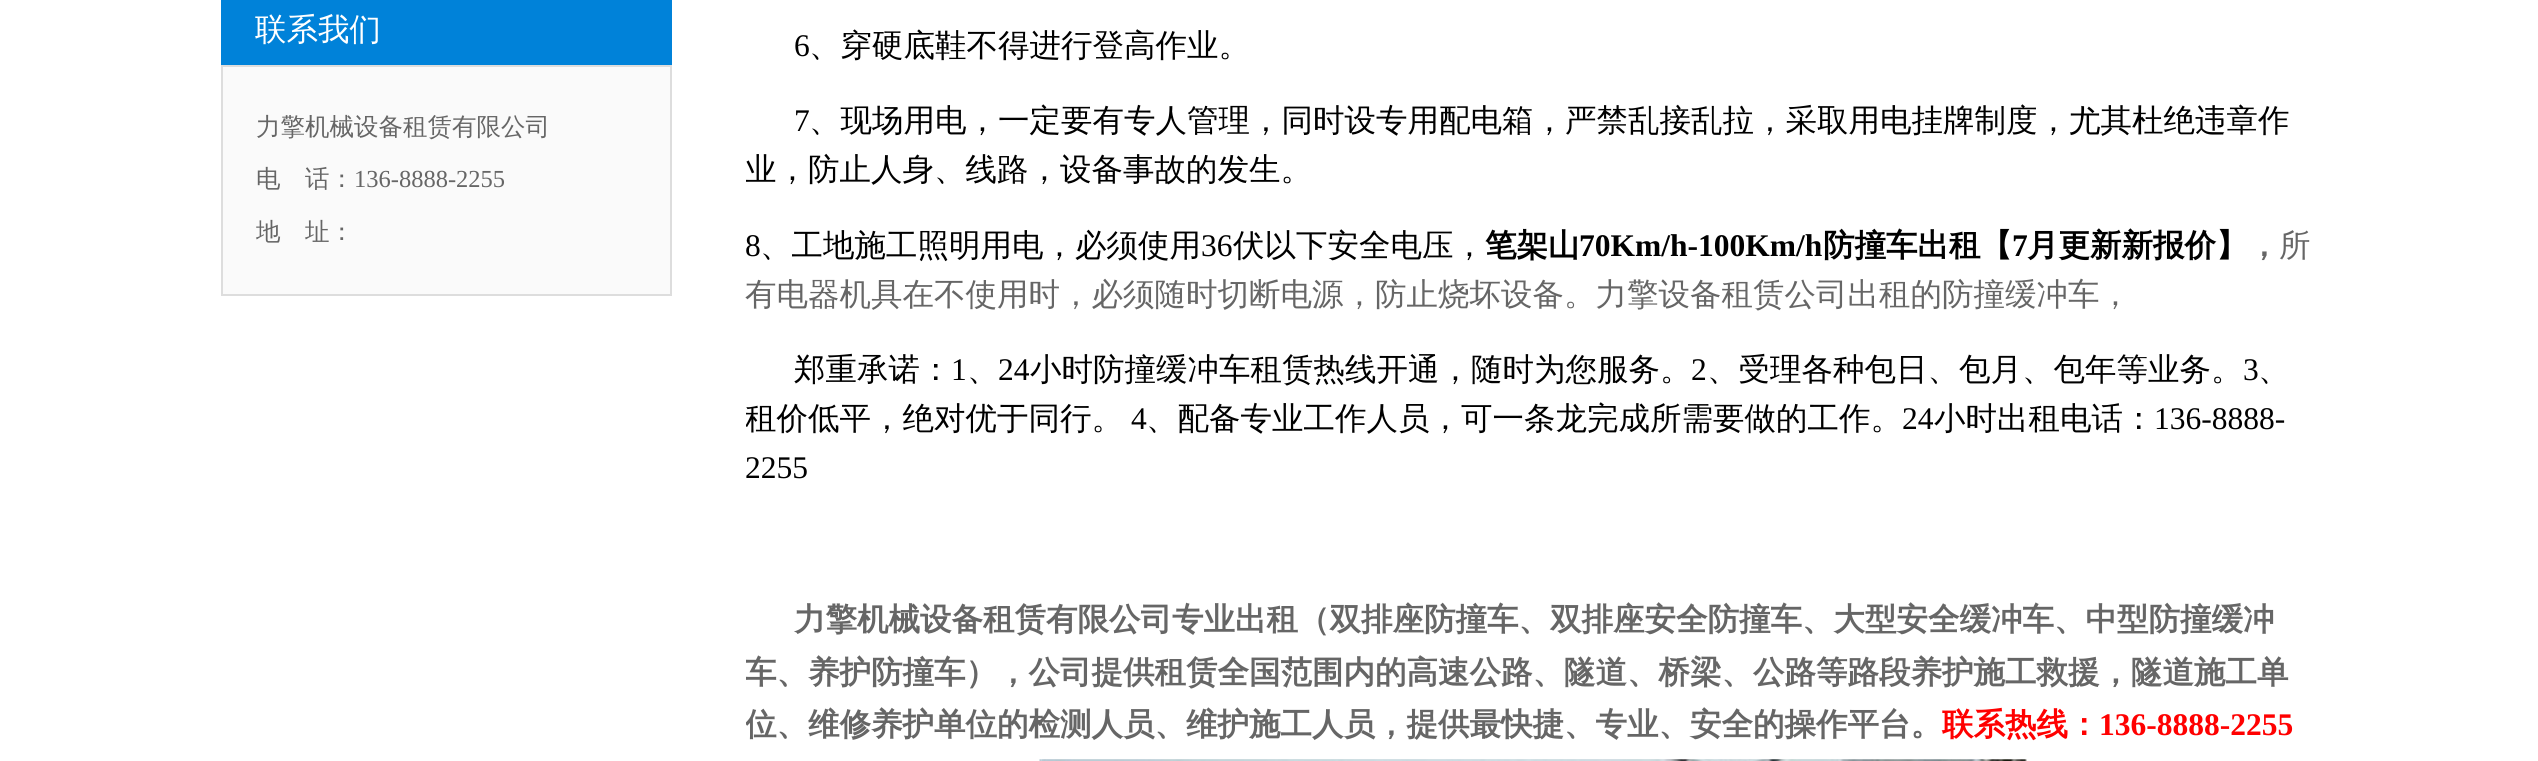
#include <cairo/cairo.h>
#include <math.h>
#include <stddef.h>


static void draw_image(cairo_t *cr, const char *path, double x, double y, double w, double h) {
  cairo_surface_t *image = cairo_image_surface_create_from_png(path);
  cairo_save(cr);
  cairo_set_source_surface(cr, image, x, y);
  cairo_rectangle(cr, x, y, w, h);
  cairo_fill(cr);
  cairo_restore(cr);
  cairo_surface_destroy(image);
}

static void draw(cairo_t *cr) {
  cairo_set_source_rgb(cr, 1, 1, 1);
  cairo_paint(cr);
  cairo_set_source_rgb(cr, 0, 130 / 255.0, 217 / 255.0);
  cairo_rectangle(cr, 221, 0, 451, 65);
  cairo_fill(cr);
  cairo_set_source_rgb(cr, 250 / 255.0, 250 / 255.0, 250 / 255.0);
  cairo_rectangle(cr, 222, 66, 449, 229);
  cairo_fill_preserve(cr);
  cairo_set_source_rgb(cr, 221 / 255.0, 221 / 255.0, 221 / 255.0);
  cairo_stroke(cr);
  draw_image(cr, "images/1.png", 1039, 759, 988, 2);
  cairo_select_font_face(cr, "WenQuanYi Zen Hei Medium", CAIRO_FONT_SLANT_NORMAL, CAIRO_FONT_WEIGHT_NORMAL);
  cairo_set_font_size(cr, 31.5);
  cairo_set_source_rgb(cr, 1, 1, 1);
  cairo_move_to(cr, 255, 40);
  cairo_show_text(cr, "联系我们");
  cairo_set_font_size(cr, 24.5);
  cairo_set_source_rgb(cr, 102 / 255.0, 102 / 255.0, 102 / 255.0);
  cairo_move_to(cr, 256, 135);
  cairo_show_text(cr, "力擎机械设备租赁有限公司");
  cairo_move_to(cr, 256, 187);
  cairo_show_text(cr, "电　话：");
  cairo_select_font_face(cr, "Liberation Serif", CAIRO_FONT_SLANT_NORMAL, CAIRO_FONT_WEIGHT_NORMAL);
  cairo_move_to(cr, 354, 187);
  cairo_show_text(cr, "136-8888-2255");
  cairo_select_font_face(cr, "WenQuanYi Zen Hei Medium", CAIRO_FONT_SLANT_NORMAL, CAIRO_FONT_WEIGHT_NORMAL);
  cairo_move_to(cr, 256, 240);
  cairo_show_text(cr, "地　址：");
  cairo_select_font_face(cr, "Liberation Serif", CAIRO_FONT_SLANT_NORMAL, CAIRO_FONT_WEIGHT_NORMAL);
  cairo_set_font_size(cr, 31.5);
  cairo_set_source_rgb(cr, 0, 0, 0);
  cairo_move_to(cr, 794, 56);
  cairo_show_text(cr, "6");
  cairo_select_font_face(cr, "WenQuanYi Zen Hei Medium", CAIRO_FONT_SLANT_NORMAL, CAIRO_FONT_WEIGHT_NORMAL);
  cairo_move_to(cr, 809, 56);
  cairo_show_text(cr, "、穿硬底鞋不得进行登高作业。");
  cairo_select_font_face(cr, "Liberation Serif", CAIRO_FONT_SLANT_NORMAL, CAIRO_FONT_WEIGHT_NORMAL);
  cairo_move_to(cr, 794, 131);
  cairo_show_text(cr, "7");
  cairo_select_font_face(cr, "WenQuanYi Zen Hei Medium", CAIRO_FONT_SLANT_NORMAL, CAIRO_FONT_WEIGHT_NORMAL);
  cairo_move_to(cr, 809, 131);
  cairo_show_text(cr, "、现场用电，一定要有专人管理，同时设专用配电箱，严禁乱接乱拉，采取用电挂牌制度，尤其杜绝违章作");
  cairo_save(cr);
  cairo_rectangle(cr, 746, 0, 1575, 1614);
  cairo_clip(cr);
  cairo_move_to(cr, 745, 180);
  cairo_show_text(cr, "业，防止人身、线路，设备事故的发生。");
  cairo_restore(cr);
  cairo_select_font_face(cr, "Liberation Serif", CAIRO_FONT_SLANT_NORMAL, CAIRO_FONT_WEIGHT_NORMAL);
  cairo_move_to(cr, 745, 256);
  cairo_show_text(cr, "8");
  cairo_select_font_face(cr, "WenQuanYi Zen Hei Medium", CAIRO_FONT_SLANT_NORMAL, CAIRO_FONT_WEIGHT_NORMAL);
  cairo_move_to(cr, 760, 256);
  cairo_show_text(cr, "、工地施工照明用电，必须使用");
  cairo_select_font_face(cr, "Liberation Serif", CAIRO_FONT_SLANT_NORMAL, CAIRO_FONT_WEIGHT_NORMAL);
  cairo_move_to(cr, 1201, 256);
  cairo_show_text(cr, "36");
  cairo_select_font_face(cr, "WenQuanYi Zen Hei Medium", CAIRO_FONT_SLANT_NORMAL, CAIRO_FONT_WEIGHT_NORMAL);
  cairo_move_to(cr, 1233, 256);
  cairo_show_text(cr, "伏以下安全电压，");
  cairo_select_font_face(cr, "WenQuanYi Zen Hei", CAIRO_FONT_SLANT_NORMAL, CAIRO_FONT_WEIGHT_BOLD);
  cairo_move_to(cr, 1485, 256);
  cairo_show_text(cr, "笔架山");
  cairo_select_font_face(cr, "Liberation Serif", CAIRO_FONT_SLANT_NORMAL, CAIRO_FONT_WEIGHT_BOLD);
  cairo_move_to(cr, 1579, 256);
  cairo_show_text(cr, "70Km/h-100Km/h");
  cairo_select_font_face(cr, "WenQuanYi Zen Hei", CAIRO_FONT_SLANT_NORMAL, CAIRO_FONT_WEIGHT_BOLD);
  cairo_move_to(cr, 1823, 256);
  cairo_show_text(cr, "防撞车出租【");
  cairo_select_font_face(cr, "Liberation Serif", CAIRO_FONT_SLANT_NORMAL, CAIRO_FONT_WEIGHT_BOLD);
  cairo_move_to(cr, 2012, 256);
  cairo_show_text(cr, "7");
  cairo_select_font_face(cr, "WenQuanYi Zen Hei", CAIRO_FONT_SLANT_NORMAL, CAIRO_FONT_WEIGHT_BOLD);
  cairo_move_to(cr, 2027, 256);
  cairo_show_text(cr, "月更新新报价】");
  cairo_set_source_rgb(cr, 102 / 255.0, 102 / 255.0, 102 / 255.0);
  cairo_move_to(cr, 2248, 256);
  cairo_show_text(cr, "，");
  cairo_select_font_face(cr, "WenQuanYi Zen Hei Medium", CAIRO_FONT_SLANT_NORMAL, CAIRO_FONT_WEIGHT_NORMAL);
  cairo_move_to(cr, 2279, 256);
  cairo_show_text(cr, "所");
  cairo_move_to(cr, 745, 305);
  cairo_show_text(cr, "有电器机具在不使用时，必须随时切断电源，防止烧坏设备。力擎设备租赁公司出租的防撞缓冲车，");
  cairo_set_source_rgb(cr, 0, 0, 0);
  cairo_move_to(cr, 794, 380);
  cairo_show_text(cr, "郑重承诺：");
  cairo_select_font_face(cr, "Liberation Serif", CAIRO_FONT_SLANT_NORMAL, CAIRO_FONT_WEIGHT_NORMAL);
  cairo_move_to(cr, 951, 380);
  cairo_show_text(cr, "1");
  cairo_select_font_face(cr, "WenQuanYi Zen Hei Medium", CAIRO_FONT_SLANT_NORMAL, CAIRO_FONT_WEIGHT_NORMAL);
  cairo_move_to(cr, 967, 380);
  cairo_show_text(cr, "、");
  cairo_select_font_face(cr, "Liberation Serif", CAIRO_FONT_SLANT_NORMAL, CAIRO_FONT_WEIGHT_NORMAL);
  cairo_move_to(cr, 998, 380);
  cairo_show_text(cr, "24");
  cairo_select_font_face(cr, "WenQuanYi Zen Hei Medium", CAIRO_FONT_SLANT_NORMAL, CAIRO_FONT_WEIGHT_NORMAL);
  cairo_move_to(cr, 1030, 380);
  cairo_show_text(cr, "小时防撞缓冲车租赁热线开通，随时为您服务。");
  cairo_select_font_face(cr, "Liberation Serif", CAIRO_FONT_SLANT_NORMAL, CAIRO_FONT_WEIGHT_NORMAL);
  cairo_move_to(cr, 1691, 380);
  cairo_show_text(cr, "2");
  cairo_select_font_face(cr, "WenQuanYi Zen Hei Medium", CAIRO_FONT_SLANT_NORMAL, CAIRO_FONT_WEIGHT_NORMAL);
  cairo_move_to(cr, 1707, 380);
  cairo_show_text(cr, "、受理各种包日、包月、包年等业务。");
  cairo_select_font_face(cr, "Liberation Serif", CAIRO_FONT_SLANT_NORMAL, CAIRO_FONT_WEIGHT_NORMAL);
  cairo_move_to(cr, 2243, 380);
  cairo_show_text(cr, "3");
  cairo_select_font_face(cr, "WenQuanYi Zen Hei Medium", CAIRO_FONT_SLANT_NORMAL, CAIRO_FONT_WEIGHT_NORMAL);
  cairo_move_to(cr, 2258, 380);
  cairo_show_text(cr, "、");
  cairo_save(cr);
  cairo_rectangle(cr, 746, 0, 1575, 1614);
  cairo_clip(cr);
  cairo_move_to(cr, 745, 429);
  cairo_show_text(cr, "租价低平，绝对优于同行。");
  cairo_restore(cr);
  cairo_select_font_face(cr, "Liberation Serif", CAIRO_FONT_SLANT_NORMAL, CAIRO_FONT_WEIGHT_NORMAL);
  cairo_move_to(cr, 1131, 429);
  cairo_show_text(cr, "4");
  cairo_select_font_face(cr, "WenQuanYi Zen Hei Medium", CAIRO_FONT_SLANT_NORMAL, CAIRO_FONT_WEIGHT_NORMAL);
  cairo_move_to(cr, 1146, 429);
  cairo_show_text(cr, "、配备专业工作人员，可一条龙完成所需要做的工作。");
  cairo_select_font_face(cr, "Liberation Serif", CAIRO_FONT_SLANT_NORMAL, CAIRO_FONT_WEIGHT_NORMAL);
  cairo_move_to(cr, 1902, 429);
  cairo_show_text(cr, "24");
  cairo_select_font_face(cr, "WenQuanYi Zen Hei Medium", CAIRO_FONT_SLANT_NORMAL, CAIRO_FONT_WEIGHT_NORMAL);
  cairo_move_to(cr, 1934, 429);
  cairo_show_text(cr, "小时出租电话：");
  cairo_select_font_face(cr, "Liberation Serif", CAIRO_FONT_SLANT_NORMAL, CAIRO_FONT_WEIGHT_NORMAL);
  cairo_move_to(cr, 2154, 429);
  cairo_show_text(cr, "136-8888-");
  cairo_move_to(cr, 745, 478);
  cairo_show_text(cr, "2255");
  cairo_select_font_face(cr, "WenQuanYi Zen Hei", CAIRO_FONT_SLANT_NORMAL, CAIRO_FONT_WEIGHT_BOLD);
  cairo_set_source_rgb(cr, 102 / 255.0, 102 / 255.0, 102 / 255.0);
  cairo_move_to(cr, 794, 630);
  cairo_show_text(cr, "力擎机械设备租赁有限公司专业出租（双排座防撞车、双排座安全防撞车、大型安全缓冲车、中型防撞缓冲");
  cairo_save(cr);
  cairo_rectangle(cr, 746, 0, 1575, 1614);
  cairo_clip(cr);
  cairo_move_to(cr, 745, 683);
  cairo_show_text(cr, "车、养护防撞车），公司提供租赁全国范围内的高速公路、隧道、桥梁、公路等路段养护施工救援，隧道施工单");
  cairo_move_to(cr, 745, 735);
  cairo_show_text(cr, "位、维修养护单位的检测人员、维护施工人员，提供最快捷、专业、安全的操作平台。");
  cairo_restore(cr);
  cairo_set_source_rgb(cr, 1, 0, 0);
  cairo_move_to(cr, 1942, 735);
  cairo_show_text(cr, "联系热线：");
  cairo_select_font_face(cr, "Liberation Serif", CAIRO_FONT_SLANT_NORMAL, CAIRO_FONT_WEIGHT_BOLD);
  cairo_move_to(cr, 2099, 735);
  cairo_show_text(cr, "136-8888-2255");
}

int main(void) {
  cairo_surface_t *surface = cairo_image_surface_create(CAIRO_FORMAT_RGB24, 2538, 761);
  cairo_t *cr = cairo_create(surface);
  cairo_font_options_t *options = cairo_font_options_create();
  cairo_font_options_set_hint_metrics(options, CAIRO_HINT_METRICS_OFF);
  cairo_font_options_set_hint_style(options, CAIRO_HINT_STYLE_NONE);
  cairo_set_font_options(cr, options);
  cairo_set_miter_limit(cr, 4);
  draw(cr);
  cairo_surface_write_to_png(surface, "out.png");
  cairo_font_options_destroy(options);
  cairo_destroy(cr);
  cairo_surface_destroy(surface);
  return 0;
}
